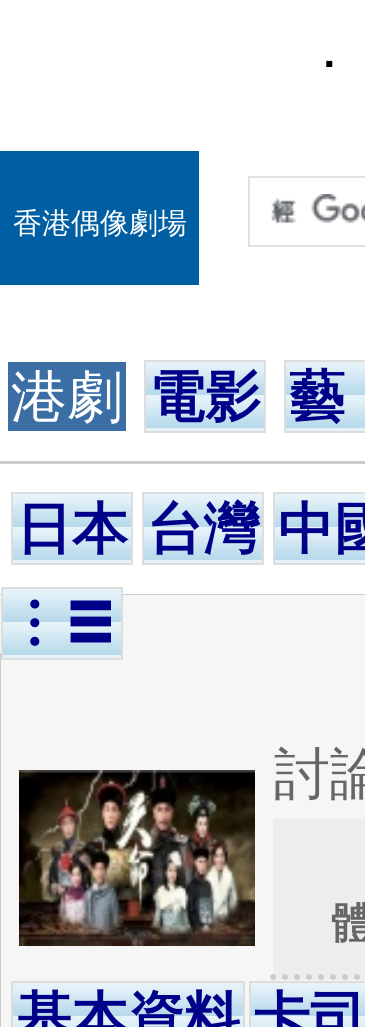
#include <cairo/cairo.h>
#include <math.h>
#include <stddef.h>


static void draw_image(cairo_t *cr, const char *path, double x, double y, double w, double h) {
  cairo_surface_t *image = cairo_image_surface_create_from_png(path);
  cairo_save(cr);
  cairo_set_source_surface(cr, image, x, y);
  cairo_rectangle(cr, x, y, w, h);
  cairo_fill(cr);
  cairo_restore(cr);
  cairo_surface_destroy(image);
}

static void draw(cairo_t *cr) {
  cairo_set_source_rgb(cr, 1, 1, 1);
  cairo_paint(cr);
  cairo_set_source_rgb(cr, 204 / 255.0, 204 / 255.0, 204 / 255.0);
  cairo_rectangle(cr, 0, 594, 365, 1);
  cairo_fill(cr);
  cairo_set_source_rgb(cr, 0, 95 / 255.0, 163 / 255.0);
  cairo_rectangle(cr, 0, 151, 199, 134);
  cairo_fill(cr);
  cairo_rectangle(cr, 249, 177, 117, 69);
  cairo_set_source_rgb(cr, 223 / 255.0, 225 / 255.0, 229 / 255.0);
  cairo_stroke(cr);
  draw_image(cr, "images/1.png", 271, 194, 94, 30);
  cairo_set_source_rgb(cr, 58 / 255.0, 110 / 255.0, 165 / 255.0);
  cairo_rectangle(cr, 8, 362, 118, 69);
  cairo_fill(cr);
  draw_image(cr, "images/2.png", 146, 362, 118, 69);
  draw_image(cr, "images/3.png", 286, 362, 79, 69);
  cairo_rectangle(cr, 145, 361, 120, 71);
  cairo_set_source_rgb(cr, 221 / 255.0, 221 / 255.0, 221 / 255.0);
  cairo_stroke(cr);
  cairo_rectangle(cr, 285, 361, 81, 71);
  cairo_stroke(cr);
  cairo_set_source_rgb(cr, 204 / 255.0, 204 / 255.0, 204 / 255.0);
  cairo_rectangle(cr, 0, 461, 365, 3);
  cairo_fill(cr);
  draw_image(cr, "images/2.png", 13, 494, 118, 69);
  draw_image(cr, "images/2.png", 144, 494, 118, 69);
  draw_image(cr, "images/4.png", 275, 494, 90, 69);
  cairo_rectangle(cr, 12, 493, 120, 71);
  cairo_set_source_rgb(cr, 221 / 255.0, 221 / 255.0, 221 / 255.0);
  cairo_stroke(cr);
  cairo_rectangle(cr, 143, 493, 120, 71);
  cairo_stroke(cr);
  cairo_rectangle(cr, 274, 493, 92, 71);
  cairo_stroke(cr);
  cairo_set_source_rgb(cr, 246 / 255.0, 246 / 255.0, 246 / 255.0);
  cairo_rectangle(cr, 0, 595, 365, 58);
  cairo_fill(cr);
  cairo_rectangle(cr, 1, 653, 364, 374);
  cairo_fill(cr);
  draw_image(cr, "images/2.png", 3, 589, 118, 69);
  cairo_rectangle(cr, 2, 588, 120, 71);
  cairo_set_source_rgb(cr, 221 / 255.0, 221 / 255.0, 221 / 255.0);
  cairo_stroke(cr);
  cairo_set_source_rgb(cr, 204 / 255.0, 204 / 255.0, 204 / 255.0);
  cairo_rectangle(cr, 0, 653, 1, 374);
  cairo_fill(cr);
  draw_image(cr, "images/5.png", 19, 770, 236, 176);
  cairo_set_source_rgb(cr, 237 / 255.0, 237 / 255.0, 237 / 255.0);
  cairo_rectangle(cr, 273, 819, 92, 161);
  cairo_fill(cr);
  cairo_new_path(cr);
  cairo_move_to(cr, 273, 977);
  cairo_line_to(cr, 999, 977);
  cairo_set_source_rgb(cr, 204 / 255.0, 204 / 255.0, 204 / 255.0);
  cairo_set_line_width(cr, 6);
  cairo_set_line_cap(cr, CAIRO_LINE_CAP_ROUND);
  cairo_set_dash(cr, (double[]){0, 12}, 2, 0);
  cairo_stroke(cr);
  draw_image(cr, "images/6.png", 13, 983, 230, 44);
  draw_image(cr, "images/7.png", 251, 983, 114, 44);
  cairo_rectangle(cr, 12, 982, 232, 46);
  cairo_set_source_rgb(cr, 221 / 255.0, 221 / 255.0, 221 / 255.0);
  cairo_set_line_width(cr, 2);
  cairo_set_line_cap(cr, CAIRO_LINE_CAP_BUTT);
  cairo_set_dash(cr, NULL, 0, 0);
  cairo_stroke(cr);
  cairo_rectangle(cr, 249, 981, 116, 2);
  cairo_fill(cr);
  cairo_rectangle(cr, 249, 981, 2, 46);
  cairo_fill(cr);
  cairo_select_font_face(cr, "WenQuanYi Zen Hei", CAIRO_FONT_SLANT_NORMAL, CAIRO_FONT_WEIGHT_BOLD);
  cairo_set_font_size(cr, 43);
  cairo_set_source_rgb(cr, 0, 0, 0);
  cairo_move_to(cr, 307, 67);
  cairo_show_text(cr, "．");
  cairo_select_font_face(cr, "WenQuanYi Zen Hei Medium", CAIRO_FONT_SLANT_NORMAL, CAIRO_FONT_WEIGHT_NORMAL);
  cairo_set_font_size(cr, 29);
  cairo_set_source_rgb(cr, 1, 1, 1);
  cairo_move_to(cr, 13, 233);
  cairo_show_text(cr, "香港偶像劇場");
  cairo_set_font_size(cr, 56);
  cairo_move_to(cr, 11, 416);
  cairo_show_text(cr, "港劇");
  cairo_select_font_face(cr, "WenQuanYi Zen Hei", CAIRO_FONT_SLANT_NORMAL, CAIRO_FONT_WEIGHT_BOLD);
  cairo_set_source_rgb(cr, 0, 0, 136 / 255.0);
  cairo_move_to(cr, 149, 416);
  cairo_show_text(cr, "電影");
  cairo_move_to(cr, 289, 416);
  cairo_show_text(cr, "藝");
  cairo_move_to(cr, 16, 548);
  cairo_show_text(cr, "日本");
  cairo_move_to(cr, 147, 548);
  cairo_show_text(cr, "台灣");
  cairo_move_to(cr, 278, 548);
  cairo_show_text(cr, "中國");
  cairo_select_font_face(cr, "Sawarabi Gothic", CAIRO_FONT_SLANT_NORMAL, CAIRO_FONT_WEIGHT_BOLD);
  cairo_move_to(cr, 6, 643);
  cairo_show_text(cr, "︙☰");
  cairo_select_font_face(cr, "WenQuanYi Zen Hei Medium", CAIRO_FONT_SLANT_NORMAL, CAIRO_FONT_WEIGHT_NORMAL);
  cairo_set_source_rgb(cr, 102 / 255.0, 102 / 255.0, 102 / 255.0);
  cairo_move_to(cr, 274, 793);
  cairo_show_text(cr, "討論");
  cairo_select_font_face(cr, "WenQuanYi Zen Hei", CAIRO_FONT_SLANT_NORMAL, CAIRO_FONT_WEIGHT_BOLD);
  cairo_set_font_size(cr, 43);
  cairo_move_to(cr, 331, 938);
  cairo_show_text(cr, "體");
  cairo_set_font_size(cr, 56);
  cairo_set_source_rgb(cr, 0, 0, 136 / 255.0);
  cairo_move_to(cr, 16, 1037);
  cairo_show_text(cr, "基本資料");
  cairo_move_to(cr, 254, 1037);
  cairo_show_text(cr, "卡司");
}

int main(void) {
  cairo_surface_t *surface = cairo_image_surface_create(CAIRO_FORMAT_RGB24, 365, 1027);
  cairo_t *cr = cairo_create(surface);
  cairo_font_options_t *options = cairo_font_options_create();
  cairo_font_options_set_hint_metrics(options, CAIRO_HINT_METRICS_OFF);
  cairo_font_options_set_hint_style(options, CAIRO_HINT_STYLE_NONE);
  cairo_set_font_options(cr, options);
  cairo_set_miter_limit(cr, 4);
  draw(cr);
  cairo_surface_write_to_png(surface, "out.png");
  cairo_font_options_destroy(options);
  cairo_destroy(cr);
  cairo_surface_destroy(surface);
  return 0;
}
